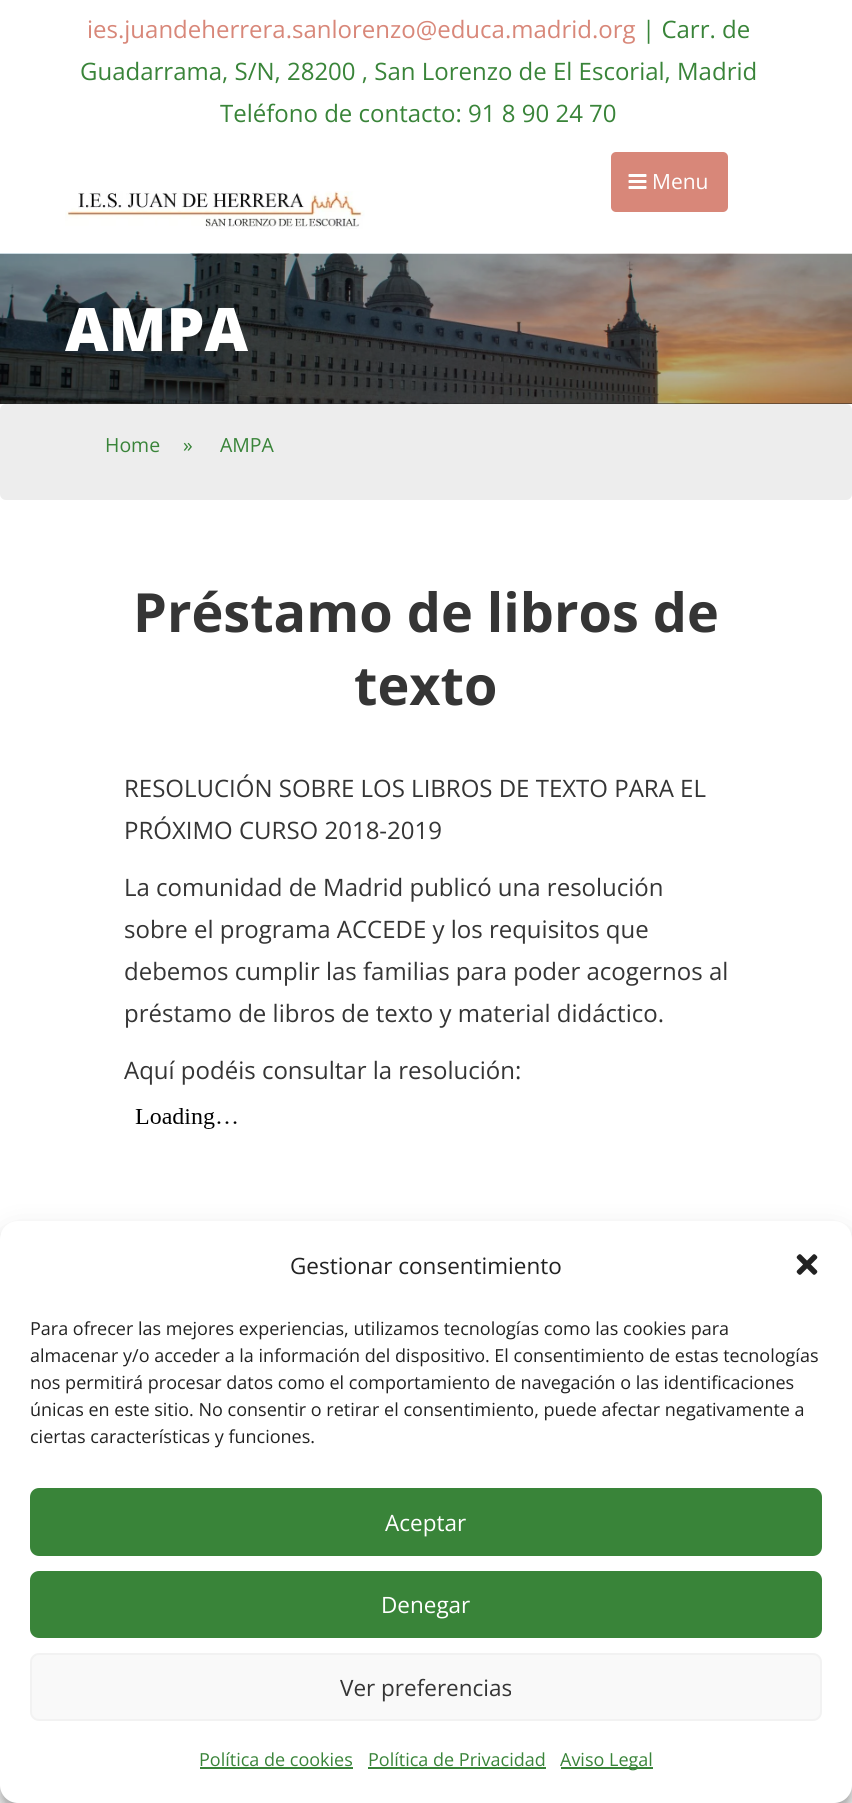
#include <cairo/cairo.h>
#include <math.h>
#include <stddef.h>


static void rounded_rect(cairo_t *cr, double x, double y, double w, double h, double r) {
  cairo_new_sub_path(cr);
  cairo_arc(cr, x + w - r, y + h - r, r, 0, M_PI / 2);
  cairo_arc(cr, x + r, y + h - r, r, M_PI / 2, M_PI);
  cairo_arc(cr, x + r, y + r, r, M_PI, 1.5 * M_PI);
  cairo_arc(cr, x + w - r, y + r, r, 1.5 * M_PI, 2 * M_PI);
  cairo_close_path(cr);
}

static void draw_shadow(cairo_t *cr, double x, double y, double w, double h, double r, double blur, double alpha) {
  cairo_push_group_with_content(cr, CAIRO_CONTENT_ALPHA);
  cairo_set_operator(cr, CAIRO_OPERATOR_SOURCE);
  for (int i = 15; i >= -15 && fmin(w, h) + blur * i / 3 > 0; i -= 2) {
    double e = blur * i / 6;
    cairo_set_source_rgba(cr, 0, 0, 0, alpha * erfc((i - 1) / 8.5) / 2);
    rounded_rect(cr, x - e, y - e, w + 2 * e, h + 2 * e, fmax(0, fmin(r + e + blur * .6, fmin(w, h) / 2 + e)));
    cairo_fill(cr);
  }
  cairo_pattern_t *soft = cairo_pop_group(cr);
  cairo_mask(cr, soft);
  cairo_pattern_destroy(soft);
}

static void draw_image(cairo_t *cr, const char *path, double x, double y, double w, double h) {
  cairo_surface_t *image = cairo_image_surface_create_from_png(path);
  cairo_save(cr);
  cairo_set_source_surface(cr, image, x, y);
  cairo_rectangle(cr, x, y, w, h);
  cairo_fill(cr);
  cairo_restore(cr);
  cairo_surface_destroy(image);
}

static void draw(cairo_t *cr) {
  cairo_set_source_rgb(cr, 1, 1, 1);
  cairo_paint(cr);
  cairo_set_source_rgb(cr, 216 / 255.0, 135 / 255.0, 121 / 255.0);
  rounded_rect(cr, 611, 152, 117, 60, 5);
  cairo_fill(cr);
  draw_image(cr, "images/1.png", 628, 174, 19, 15);
  draw_image(cr, "images/2.png", 65, 191, 300, 38);
  cairo_set_source_rgb(cr, 36 / 255.0, 36 / 255.0, 36 / 255.0);
  cairo_rectangle(cr, 0, 403, 852, 1);
  cairo_fill(cr);
  draw_image(cr, "images/3.png", 0, 253, 852, 151);
  cairo_set_source_rgb(cr, 237 / 255.0, 237 / 255.0, 237 / 255.0);
  rounded_rect(cr, 0, 404, 852, 96, 6);
  cairo_fill(cr);
  draw_image(cr, "images/4.png", 135, 1108, 102, 21);
  cairo_set_source_rgb(cr, 0, 0, 0);
  draw_shadow(cr, 0, 1230, 852, 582, 18, 4.5, 0.23);
  draw_shadow(cr, 0, 1236, 852, 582, 18, 15, 0.19);
  cairo_set_source_rgb(cr, 1, 1, 1);
  rounded_rect(cr, 0, 1221, 852, 582, 18);
  cairo_fill(cr);
  draw_image(cr, "images/5.png", 796, 1254, 22, 21);
  cairo_set_source_rgb(cr, 57 / 255.0, 132 / 255.0, 57 / 255.0);
  rounded_rect(cr, 31, 1489, 790, 66, 8);
  cairo_fill_preserve(cr);
  cairo_stroke(cr);
  rounded_rect(cr, 31, 1572, 790, 65, 8);
  cairo_fill_preserve(cr);
  cairo_stroke(cr);
  cairo_set_source_rgb(cr, 249 / 255.0, 249 / 255.0, 249 / 255.0);
  rounded_rect(cr, 31, 1654, 790, 66, 8);
  cairo_fill_preserve(cr);
  cairo_set_source_rgb(cr, 242 / 255.0, 242 / 255.0, 242 / 255.0);
  cairo_stroke(cr);
  cairo_set_source_rgb(cr, 57 / 255.0, 132 / 255.0, 57 / 255.0);
  cairo_rectangle(cr, 200, 1767, 153, 2);
  cairo_fill(cr);
  cairo_rectangle(cr, 368, 1767, 178, 2);
  cairo_fill(cr);
  cairo_rectangle(cr, 561, 1767, 92, 2);
  cairo_fill(cr);
  cairo_select_font_face(cr, "Open Sans", CAIRO_FONT_SLANT_NORMAL, CAIRO_FONT_WEIGHT_NORMAL);
  cairo_set_font_size(cr, 24);
  cairo_set_source_rgb(cr, 216 / 255.0, 135 / 255.0, 121 / 255.0);
  cairo_move_to(cr, 87, 38);
  cairo_show_text(cr, "ies.juandeherrera.sanlorenzo@educa.madrid.org");
  cairo_set_source_rgb(cr, 57 / 255.0, 132 / 255.0, 57 / 255.0);
  cairo_move_to(cr, 642, 38);
  cairo_show_text(cr, "| Carr. de");
  cairo_move_to(cr, 80, 80);
  cairo_show_text(cr, "Guadarrama, S/N, 28200 , San Lorenzo de El Escorial, Madrid");
  cairo_move_to(cr, 220, 122);
  cairo_show_text(cr, "Teléfono de contacto: 91 8 90 24 70");
  cairo_set_font_size(cr, 21);
  cairo_set_source_rgb(cr, 1, 1, 1);
  cairo_move_to(cr, 652, 189);
  cairo_show_text(cr, "Menu");
  cairo_select_font_face(cr, "Open Sans ExtraBold", CAIRO_FONT_SLANT_NORMAL, CAIRO_FONT_WEIGHT_NORMAL);
  cairo_set_font_size(cr, 60);
  cairo_move_to(cr, 65, 351);
  cairo_show_text(cr, "AMPA");
  cairo_select_font_face(cr, "Open Sans", CAIRO_FONT_SLANT_NORMAL, CAIRO_FONT_WEIGHT_NORMAL);
  cairo_set_font_size(cr, 19.5);
  cairo_set_source_rgb(cr, 57 / 255.0, 132 / 255.0, 57 / 255.0);
  cairo_move_to(cr, 105, 452);
  cairo_show_text(cr, "Home");
  cairo_move_to(cr, 183, 452);
  cairo_show_text(cr, "»");
  cairo_move_to(cr, 220, 452);
  cairo_show_text(cr, "AMPA");
  cairo_select_font_face(cr, "Open Sans", CAIRO_FONT_SLANT_NORMAL, CAIRO_FONT_WEIGHT_BOLD);
  cairo_set_font_size(cr, 54);
  cairo_set_source_rgb(cr, 53 / 255.0, 53 / 255.0, 53 / 255.0);
  cairo_move_to(cr, 133, 632);
  cairo_show_text(cr, "Préstamo de libros de");
  cairo_move_to(cr, 354, 705);
  cairo_show_text(cr, "texto");
  cairo_select_font_face(cr, "Open Sans", CAIRO_FONT_SLANT_NORMAL, CAIRO_FONT_WEIGHT_NORMAL);
  cairo_set_font_size(cr, 24);
  cairo_move_to(cr, 124, 797);
  cairo_show_text(cr, "RESOLUCIÓN SOBRE LOS LIBROS DE TEXTO PARA EL");
  cairo_move_to(cr, 124, 839);
  cairo_show_text(cr, "PRÓXIMO CURSO 2018-2019");
  cairo_move_to(cr, 124, 896);
  cairo_show_text(cr, "La comunidad de Madrid publicó una resolución");
  cairo_move_to(cr, 124, 938);
  cairo_show_text(cr, "sobre el programa ACCEDE y los requisitos que");
  cairo_move_to(cr, 124, 980);
  cairo_show_text(cr, "debemos cumplir las familias para poder acogernos al");
  cairo_move_to(cr, 124, 1022);
  cairo_show_text(cr, "préstamo de libros de texto y material didáctico.");
  cairo_move_to(cr, 124, 1079);
  cairo_show_text(cr, "Aquí podéis consultar la resolución:");
  cairo_set_font_size(cr, 22.5);
  cairo_set_source_rgb(cr, 34 / 255.0, 34 / 255.0, 34 / 255.0);
  cairo_move_to(cr, 290, 1274);
  cairo_show_text(cr, "Gestionar consentimiento");
  cairo_set_font_size(cr, 18);
  cairo_move_to(cr, 30, 1335);
  cairo_show_text(cr, "Para ofrecer las mejores experiencias, utilizamos tecnologías como las cookies para");
  cairo_move_to(cr, 30, 1362);
  cairo_show_text(cr, "almacenar y/o acceder a la información del dispositivo. El consentimiento de estas tecnologías");
  cairo_move_to(cr, 30, 1389);
  cairo_show_text(cr, "nos permitirá procesar datos como el comportamiento de navegación o las identificaciones");
  cairo_move_to(cr, 30, 1416);
  cairo_show_text(cr, "únicas en este sitio. No consentir o retirar el consentimiento, puede afectar negativamente a");
  cairo_move_to(cr, 30, 1443);
  cairo_show_text(cr, "ciertas características y funciones.");
  cairo_set_font_size(cr, 22.5);
  cairo_set_source_rgb(cr, 1, 1, 1);
  cairo_move_to(cr, 385, 1531);
  cairo_show_text(cr, "Aceptar");
  cairo_move_to(cr, 381, 1613);
  cairo_show_text(cr, "Denegar");
  cairo_set_source_rgb(cr, 53 / 255.0, 53 / 255.0, 53 / 255.0);
  cairo_move_to(cr, 340, 1696);
  cairo_show_text(cr, "Ver preferencias");
  cairo_set_font_size(cr, 18);
  cairo_set_source_rgb(cr, 57 / 255.0, 132 / 255.0, 57 / 255.0);
  cairo_move_to(cr, 199, 1766);
  cairo_show_text(cr, "Política de cookies");
  cairo_move_to(cr, 368, 1766);
  cairo_show_text(cr, "Política de Privacidad");
  cairo_move_to(cr, 560, 1766);
  cairo_show_text(cr, "Aviso Legal");
}

int main(void) {
  cairo_surface_t *surface = cairo_image_surface_create(CAIRO_FORMAT_RGB24, 852, 1803);
  cairo_t *cr = cairo_create(surface);
  cairo_font_options_t *options = cairo_font_options_create();
  cairo_font_options_set_hint_metrics(options, CAIRO_HINT_METRICS_OFF);
  cairo_font_options_set_hint_style(options, CAIRO_HINT_STYLE_NONE);
  cairo_set_font_options(cr, options);
  cairo_set_miter_limit(cr, 4);
  draw(cr);
  cairo_surface_write_to_png(surface, "out.png");
  cairo_font_options_destroy(options);
  cairo_destroy(cr);
  cairo_surface_destroy(surface);
  return 0;
}
